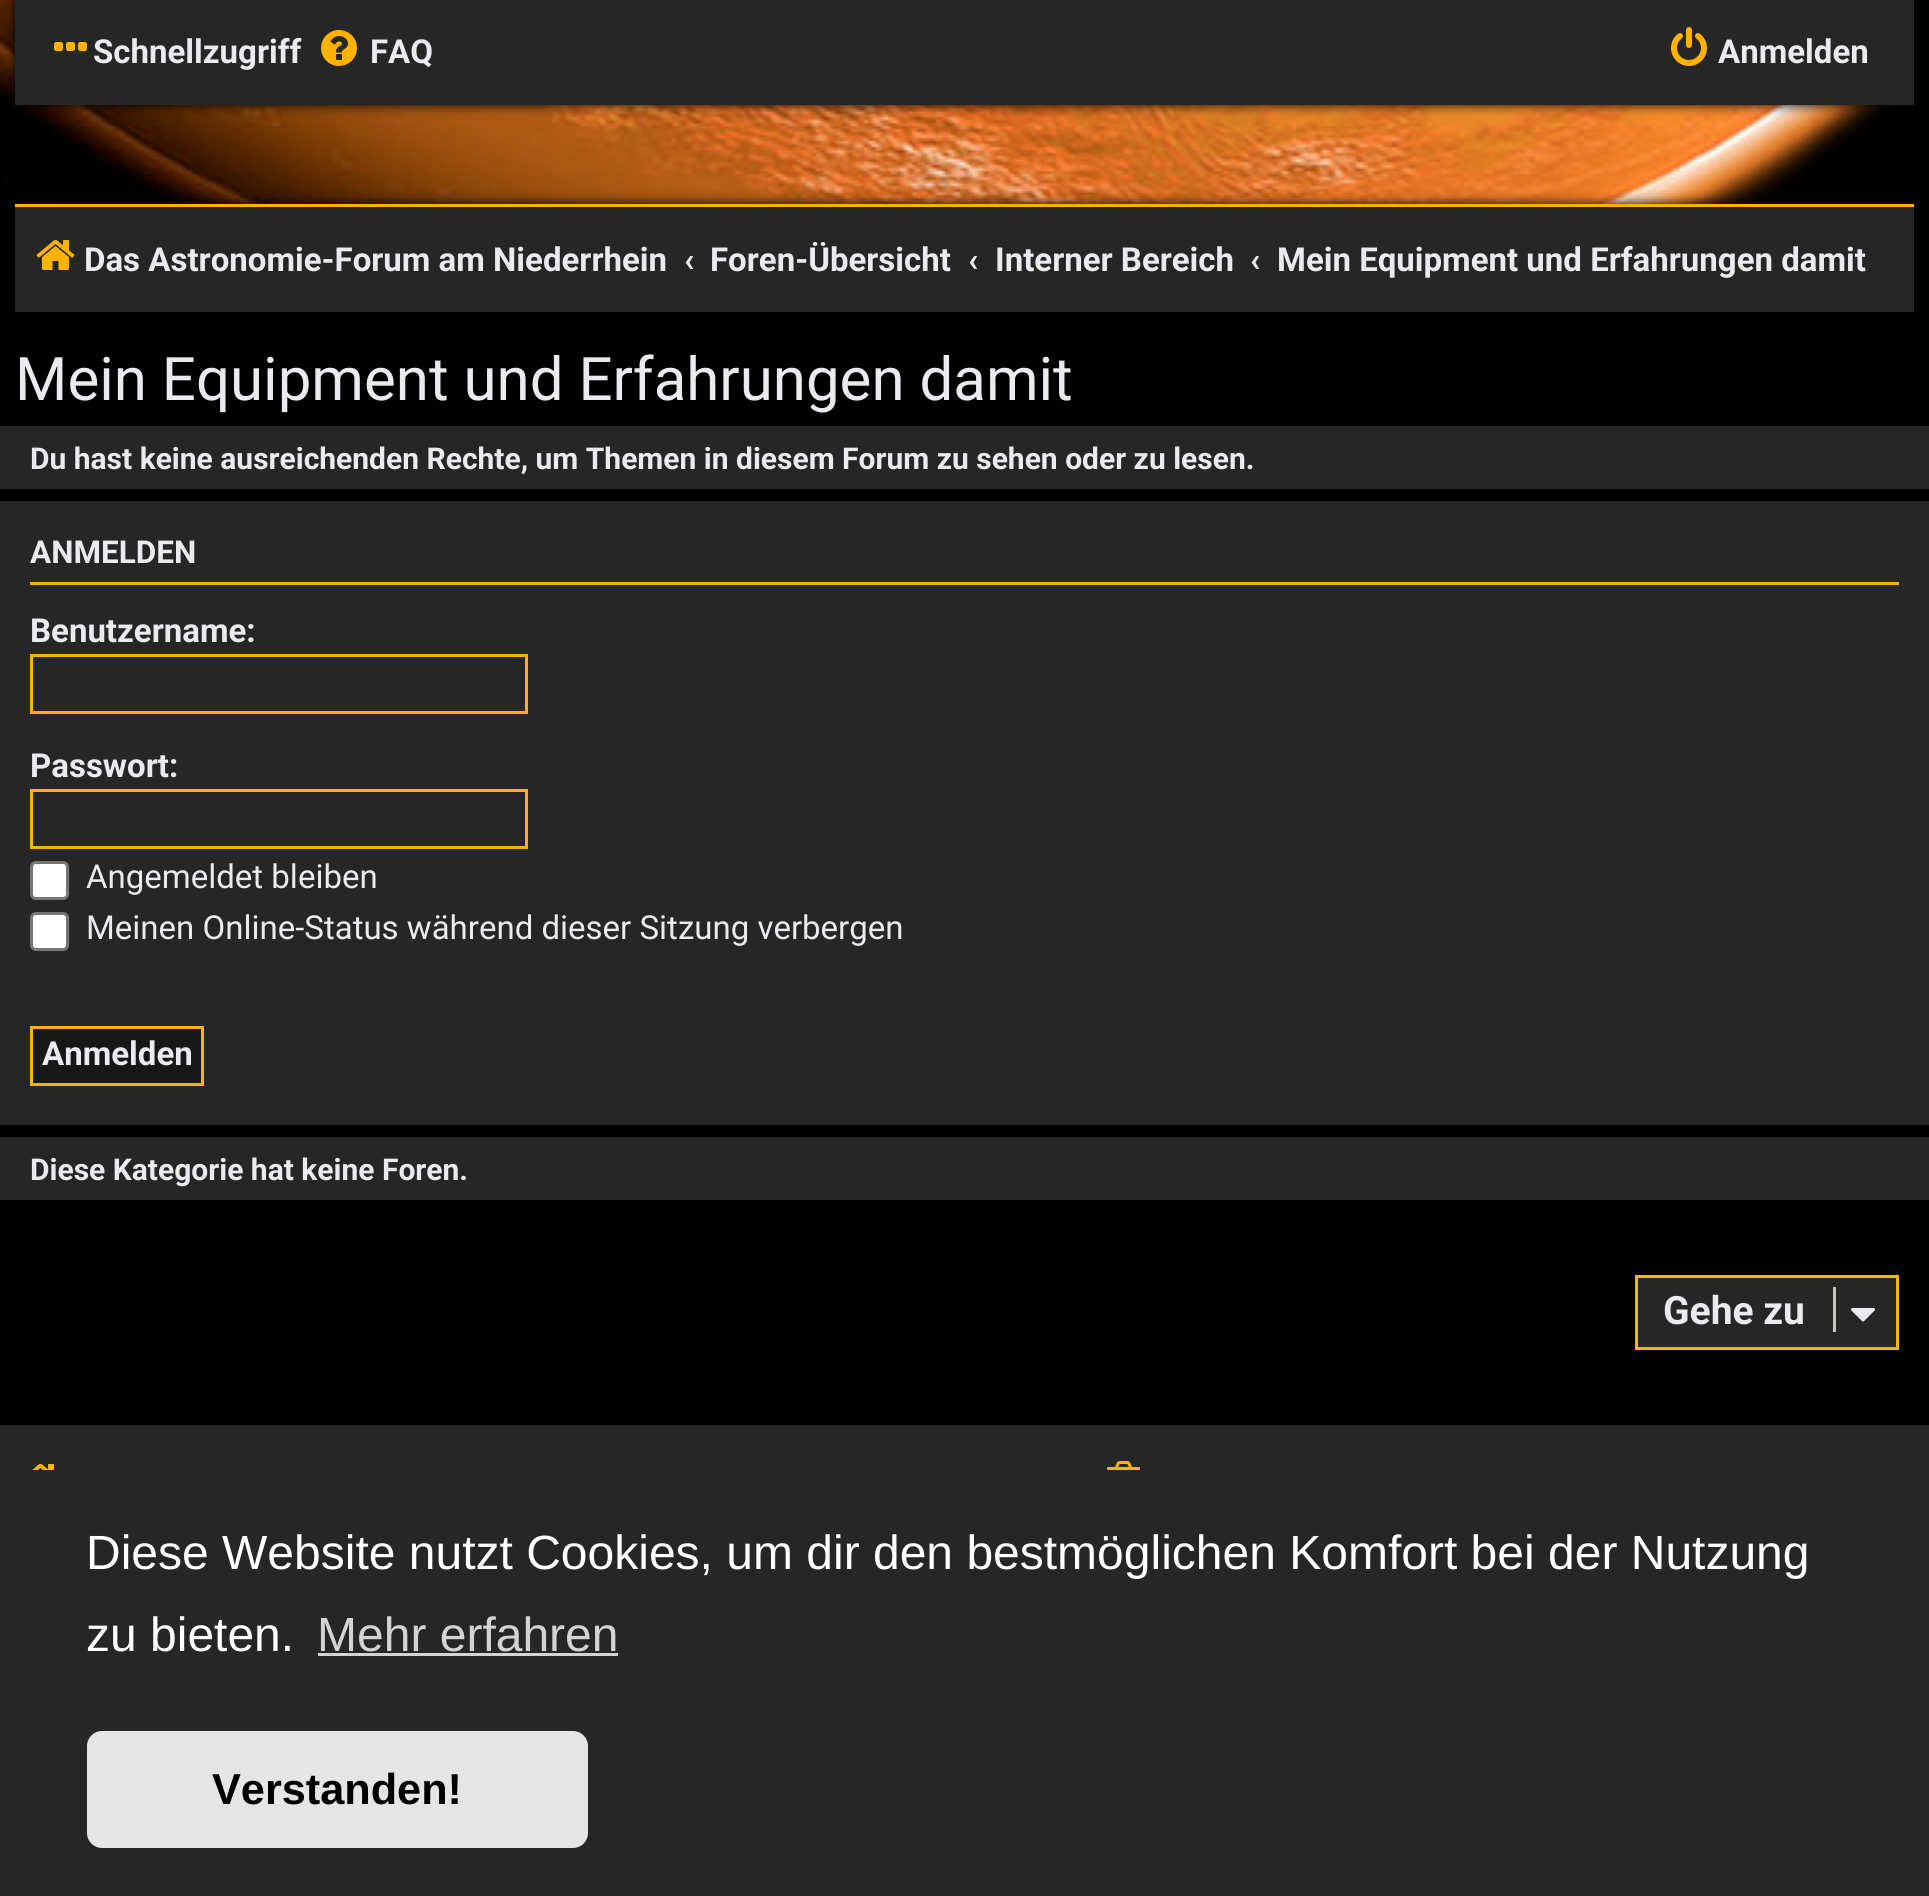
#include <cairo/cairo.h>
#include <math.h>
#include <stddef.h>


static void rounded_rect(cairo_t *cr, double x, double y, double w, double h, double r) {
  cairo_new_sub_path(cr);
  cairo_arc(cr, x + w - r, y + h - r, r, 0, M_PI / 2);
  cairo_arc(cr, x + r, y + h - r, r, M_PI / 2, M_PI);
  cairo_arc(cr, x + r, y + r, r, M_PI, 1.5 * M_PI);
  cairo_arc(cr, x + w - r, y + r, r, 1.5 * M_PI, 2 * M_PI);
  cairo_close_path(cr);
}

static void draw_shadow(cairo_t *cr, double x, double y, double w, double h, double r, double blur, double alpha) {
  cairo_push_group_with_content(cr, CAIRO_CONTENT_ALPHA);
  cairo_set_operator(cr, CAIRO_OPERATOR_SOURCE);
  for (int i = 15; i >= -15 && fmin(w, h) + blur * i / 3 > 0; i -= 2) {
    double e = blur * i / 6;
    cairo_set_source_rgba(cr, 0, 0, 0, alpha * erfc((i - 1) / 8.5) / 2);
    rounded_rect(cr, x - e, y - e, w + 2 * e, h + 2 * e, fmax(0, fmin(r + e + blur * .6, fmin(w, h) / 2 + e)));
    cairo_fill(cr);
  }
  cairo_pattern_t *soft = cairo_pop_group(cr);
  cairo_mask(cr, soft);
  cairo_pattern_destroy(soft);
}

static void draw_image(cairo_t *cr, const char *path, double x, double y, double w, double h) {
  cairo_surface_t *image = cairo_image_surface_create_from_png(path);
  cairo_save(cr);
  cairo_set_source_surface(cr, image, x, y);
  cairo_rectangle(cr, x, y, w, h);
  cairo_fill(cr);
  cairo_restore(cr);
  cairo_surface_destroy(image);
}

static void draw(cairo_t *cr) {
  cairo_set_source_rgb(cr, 0, 0, 0);
  cairo_paint(cr);
  draw_image(cr, "images/4.png", 0, 0, 1914, 249);
  draw_shadow(cr, 15, 0, 1899, 105, 0, 6, 1);
  cairo_set_source_rgb(cr, 38 / 255.0, 38 / 255.0, 38 / 255.0);
  cairo_rectangle(cr, 15, 0, 1899, 105);
  cairo_fill(cr);
  draw_image(cr, "images/1.png", 54, 42, 33, 9);
  draw_image(cr, "images/2.png", 321, 30, 36, 36);
  draw_image(cr, "images/3.png", 1671, 27, 36, 39);
  cairo_set_source_rgb(cr, 0, 0, 0);
  draw_shadow(cr, 15, 204, 1899, 108, 0, 6, 1);
  cairo_set_source_rgb(cr, 38 / 255.0, 38 / 255.0, 38 / 255.0);
  cairo_rectangle(cr, 15, 207, 1899, 105);
  cairo_fill(cr);
  cairo_set_source_rgb(cr, 1, 179 / 255.0, 0);
  cairo_rectangle(cr, 15, 204, 1899, 3);
  cairo_fill(cr);
  draw_image(cr, "images/5.png", 36, 239, 39, 31);
  cairo_set_source_rgb(cr, 38 / 255.0, 38 / 255.0, 38 / 255.0);
  cairo_rectangle(cr, 0, 426, 1929, 63);
  cairo_fill(cr);
  cairo_rectangle(cr, 0, 501, 1929, 624);
  cairo_fill(cr);
  cairo_set_source_rgb(cr, 1, 179 / 255.0, 0);
  cairo_rectangle(cr, 30, 582, 1869, 3);
  cairo_fill(cr);
  cairo_rectangle(cr, 31.5, 655.5, 495, 57);
  cairo_set_line_width(cr, 3);
  cairo_stroke(cr);
  cairo_rectangle(cr, 31.5, 790.5, 495, 57);
  cairo_stroke(cr);
  cairo_set_source_rgb(cr, 1, 1, 1);
  rounded_rect(cr, 31.5, 862.5, 36, 36, 4.5);
  cairo_fill_preserve(cr);
  cairo_set_source_rgb(cr, 118 / 255.0, 118 / 255.0, 118 / 255.0);
  cairo_stroke(cr);
  cairo_set_source_rgb(cr, 1, 1, 1);
  rounded_rect(cr, 31.5, 913.5, 36, 36, 4.5);
  cairo_fill_preserve(cr);
  cairo_set_source_rgb(cr, 118 / 255.0, 118 / 255.0, 118 / 255.0);
  cairo_stroke(cr);
  cairo_set_source_rgb(cr, 23 / 255.0, 23 / 255.0, 23 / 255.0);
  cairo_rectangle(cr, 31.5, 1027.5, 171, 57);
  cairo_fill_preserve(cr);
  cairo_set_source_rgb(cr, 1, 179 / 255.0, 0);
  cairo_stroke(cr);
  cairo_set_source_rgb(cr, 38 / 255.0, 38 / 255.0, 38 / 255.0);
  cairo_rectangle(cr, 0, 1137, 1929, 63);
  cairo_fill(cr);
  cairo_rectangle(cr, 1636.5, 1276.5, 261, 72);
  cairo_fill_preserve(cr);
  cairo_set_source_rgb(cr, 1, 179 / 255.0, 0);
  cairo_stroke(cr);
  cairo_set_source_rgb(cr, 199 / 255.0, 195 / 255.0, 191 / 255.0);
  cairo_rectangle(cr, 1833, 1287, 3, 45);
  cairo_fill(cr);
  draw_image(cr, "images/6.png", 1851, 1308, 24, 14);
  cairo_set_source_rgb(cr, 38 / 255.0, 38 / 255.0, 38 / 255.0);
  cairo_rectangle(cr, 0, 1425, 1929, 471);
  cairo_fill(cr);
  draw_image(cr, "images/7.png", 32, 1463, 22, 7);
  draw_image(cr, "images/8.png", 1107, 1461, 33, 9);
  cairo_set_source_rgb(cr, 212 / 255.0, 212 / 255.0, 212 / 255.0);
  cairo_rectangle(cr, 318, 1653, 300, 3);
  cairo_fill(cr);
  cairo_set_source_rgb(cr, 229 / 255.0, 229 / 255.0, 229 / 255.0);
  rounded_rect(cr, 87, 1731, 501, 117, 15);
  cairo_fill(cr);
  cairo_select_font_face(cr, "Roboto", CAIRO_FONT_SLANT_NORMAL, CAIRO_FONT_WEIGHT_BOLD);
  cairo_set_font_size(cr, 33);
  cairo_set_source_rgb(cr, 233 / 255.0, 235 / 255.0, 238 / 255.0);
  cairo_move_to(cr, 93, 63);
  cairo_show_text(cr, "Schnellzugriff");
  cairo_move_to(cr, 370, 63);
  cairo_show_text(cr, "FAQ");
  cairo_move_to(cr, 1718, 63);
  cairo_show_text(cr, "Anmelden");
  cairo_move_to(cr, 84, 271);
  cairo_show_text(cr, "Das Astronomie-Forum am Niederrhein");
  cairo_move_to(cr, 684, 271);
  cairo_show_text(cr, "‹");
  cairo_move_to(cr, 710, 271);
  cairo_show_text(cr, "Foren-Übersicht");
  cairo_move_to(cr, 968, 271);
  cairo_show_text(cr, "‹");
  cairo_move_to(cr, 995, 271);
  cairo_show_text(cr, "Interner Bereich");
  cairo_move_to(cr, 1250, 271);
  cairo_show_text(cr, "‹");
  cairo_move_to(cr, 1277, 271);
  cairo_show_text(cr, "Mein Equipment und Erfahrungen damit");
  cairo_select_font_face(cr, "Roboto", CAIRO_FONT_SLANT_NORMAL, CAIRO_FONT_WEIGHT_NORMAL);
  cairo_set_font_size(cr, 60);
  cairo_move_to(cr, 15, 400);
  cairo_show_text(cr, "Mein Equipment und Erfahrungen damit");
  cairo_select_font_face(cr, "Roboto", CAIRO_FONT_SLANT_NORMAL, CAIRO_FONT_WEIGHT_BOLD);
  cairo_set_font_size(cr, 30);
  cairo_move_to(cr, 30, 469);
  cairo_show_text(cr, "Du hast keine ausreichenden Rechte, um Themen in diesem Forum zu sehen oder zu lesen.");
  cairo_set_font_size(cr, 31.5);
  cairo_move_to(cr, 30, 563);
  cairo_show_text(cr, "ANMELDEN");
  cairo_set_font_size(cr, 33);
  cairo_move_to(cr, 30, 642);
  cairo_show_text(cr, "Benutzername:");
  cairo_move_to(cr, 30, 777);
  cairo_show_text(cr, "Passwort:");
  cairo_select_font_face(cr, "Roboto", CAIRO_FONT_SLANT_NORMAL, CAIRO_FONT_WEIGHT_NORMAL);
  cairo_move_to(cr, 86, 888);
  cairo_show_text(cr, "Angemeldet bleiben");
  cairo_move_to(cr, 86, 939);
  cairo_show_text(cr, "Meinen Online-Status während dieser Sitzung verbergen");
  cairo_select_font_face(cr, "Roboto", CAIRO_FONT_SLANT_NORMAL, CAIRO_FONT_WEIGHT_BOLD);
  cairo_move_to(cr, 42, 1065);
  cairo_show_text(cr, "Anmelden");
  cairo_set_font_size(cr, 30);
  cairo_move_to(cr, 30, 1180);
  cairo_show_text(cr, "Diese Kategorie hat keine Foren.");
  cairo_set_font_size(cr, 39);
  cairo_move_to(cr, 1663, 1324);
  cairo_show_text(cr, "Gehe zu");
  cairo_select_font_face(cr, "Liberation Sans", CAIRO_FONT_SLANT_NORMAL, CAIRO_FONT_WEIGHT_NORMAL);
  cairo_set_font_size(cr, 48);
  cairo_set_source_rgb(cr, 1, 1, 1);
  cairo_move_to(cr, 86, 1569);
  cairo_show_text(cr, "Diese Website nutzt Cookies, um dir den bestmöglichen Komfort bei der Nutzung");
  cairo_move_to(cr, 86, 1651);
  cairo_show_text(cr, "zu bieten.");
  cairo_set_source_rgb(cr, 212 / 255.0, 212 / 255.0, 212 / 255.0);
  cairo_move_to(cr, 317, 1651);
  cairo_show_text(cr, "Mehr erfahren");
  cairo_select_font_face(cr, "Liberation Sans", CAIRO_FONT_SLANT_NORMAL, CAIRO_FONT_WEIGHT_BOLD);
  cairo_set_font_size(cr, 43.25);
  cairo_set_source_rgb(cr, 0, 0, 0);
  cairo_move_to(cr, 212, 1804);
  cairo_show_text(cr, "Verstanden!");
}

int main(void) {
  cairo_surface_t *surface = cairo_image_surface_create(CAIRO_FORMAT_RGB24, 1929, 1896);
  cairo_t *cr = cairo_create(surface);
  cairo_font_options_t *options = cairo_font_options_create();
  cairo_font_options_set_hint_metrics(options, CAIRO_HINT_METRICS_OFF);
  cairo_font_options_set_hint_style(options, CAIRO_HINT_STYLE_NONE);
  cairo_set_font_options(cr, options);
  cairo_set_miter_limit(cr, 4);
  draw(cr);
  cairo_surface_write_to_png(surface, "out.png");
  cairo_font_options_destroy(options);
  cairo_destroy(cr);
  cairo_surface_destroy(surface);
  return 0;
}
